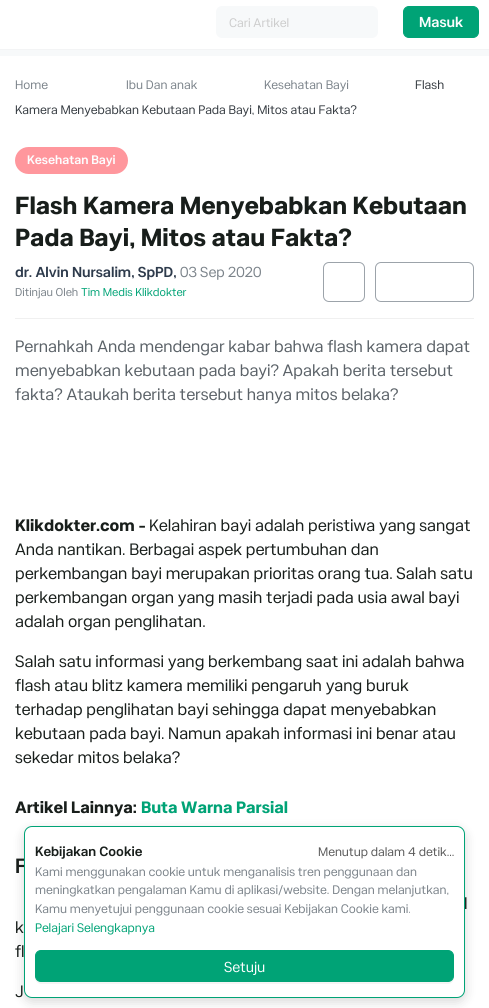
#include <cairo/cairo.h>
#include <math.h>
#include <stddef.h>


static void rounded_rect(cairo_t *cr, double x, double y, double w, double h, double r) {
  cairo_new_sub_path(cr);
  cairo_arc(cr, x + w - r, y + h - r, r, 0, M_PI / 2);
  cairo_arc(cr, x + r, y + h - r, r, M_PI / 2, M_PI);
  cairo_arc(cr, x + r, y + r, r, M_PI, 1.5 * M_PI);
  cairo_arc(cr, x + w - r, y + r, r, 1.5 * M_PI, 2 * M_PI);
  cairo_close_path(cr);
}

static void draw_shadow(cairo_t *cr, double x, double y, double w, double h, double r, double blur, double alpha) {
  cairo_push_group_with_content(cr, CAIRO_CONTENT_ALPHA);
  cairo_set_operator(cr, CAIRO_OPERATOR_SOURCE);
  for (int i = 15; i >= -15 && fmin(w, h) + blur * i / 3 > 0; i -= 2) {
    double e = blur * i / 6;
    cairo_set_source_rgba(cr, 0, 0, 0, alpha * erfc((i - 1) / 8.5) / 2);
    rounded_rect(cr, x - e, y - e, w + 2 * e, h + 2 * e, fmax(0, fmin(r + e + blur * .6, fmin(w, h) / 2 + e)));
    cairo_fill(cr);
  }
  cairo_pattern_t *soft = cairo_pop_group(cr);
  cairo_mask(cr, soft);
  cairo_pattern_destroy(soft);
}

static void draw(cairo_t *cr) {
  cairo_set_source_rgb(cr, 247 / 255.0, 249 / 255.0, 250 / 255.0);
  cairo_paint(cr);
  cairo_set_source_rgb(cr, 1, 1, 1);
  cairo_rectangle(cr, 0, 0, 489, 49);
  cairo_fill(cr);
  cairo_set_source_rgb(cr, 243 / 255.0, 244 / 255.0, 245 / 255.0);
  cairo_rectangle(cr, 0, 49, 489, 1);
  cairo_fill(cr);
  cairo_set_source_rgb(cr, 247 / 255.0, 249 / 255.0, 250 / 255.0);
  rounded_rect(cr, 216, 6, 162, 32, 6);
  cairo_fill(cr);
  cairo_set_source_rgb(cr, 0, 163 / 255.0, 118 / 255.0);
  rounded_rect(cr, 403.5, 6.5, 75, 31, 5.5);
  cairo_fill_preserve(cr);
  cairo_set_line_width(cr, 1);
  cairo_stroke(cr);
  cairo_set_source_rgb(cr, 1, 1, 1);
  cairo_rectangle(cr, 0, 56, 489, 952);
  cairo_fill(cr);
  cairo_set_source_rgb(cr, 1, 151 / 255.0, 157 / 255.0);
  rounded_rect(cr, 15, 147, 113, 27, 13.5);
  cairo_fill(cr);
  rounded_rect(cr, 323.5, 262.5, 41, 39, 5.5);
  cairo_set_source_rgb(cr, 156 / 255.0, 163 / 255.0, 170 / 255.0);
  cairo_stroke(cr);
  rounded_rect(cr, 375.5, 262.5, 98, 39, 5.5);
  cairo_stroke(cr);
  cairo_set_source_rgb(cr, 240 / 255.0, 240 / 255.0, 240 / 255.0);
  cairo_rectangle(cr, 15, 318, 459, 1);
  cairo_fill(cr);
  cairo_set_source_rgb(cr, 0, 0, 0);
  draw_shadow(cr, 24, 830, 441, 172, 8, 6, 0.15);
  cairo_select_font_face(cr, "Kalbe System", CAIRO_FONT_SLANT_NORMAL, CAIRO_FONT_WEIGHT_NORMAL);
  cairo_set_font_size(cr, 12);
  cairo_set_source_rgb(cr, 204 / 255.0, 204 / 255.0, 204 / 255.0);
  cairo_move_to(cr, 229, 27);
  cairo_show_text(cr, "Cari Artikel");
  cairo_select_font_face(cr, "Kalbe System SemiBold", CAIRO_FONT_SLANT_NORMAL, CAIRO_FONT_WEIGHT_NORMAL);
  cairo_set_font_size(cr, 14);
  cairo_set_source_rgb(cr, 253 / 255.0, 253 / 255.0, 254 / 255.0);
  cairo_move_to(cr, 419, 27);
  cairo_show_text(cr, "Masuk");
  cairo_select_font_face(cr, "Kalbe System", CAIRO_FONT_SLANT_NORMAL, CAIRO_FONT_WEIGHT_NORMAL);
  cairo_set_font_size(cr, 12);
  cairo_set_source_rgb(cr, 123 / 255.0, 131 / 255.0, 138 / 255.0);
  cairo_move_to(cr, 15, 89);
  cairo_show_text(cr, "Home");
  cairo_move_to(cr, 126, 89);
  cairo_show_text(cr, "Ibu Dan anak");
  cairo_move_to(cr, 264, 89);
  cairo_show_text(cr, "Kesehatan Bayi");
  cairo_set_source_rgb(cr, 52 / 255.0, 58 / 255.0, 64 / 255.0);
  cairo_move_to(cr, 415, 89);
  cairo_show_text(cr, "Flash");
  cairo_move_to(cr, 15, 114);
  cairo_show_text(cr, "Kamera Menyebabkan Kebutaan Pada Bayi, Mitos atau Fakta?");
  cairo_select_font_face(cr, "Kalbe System SemiBold", CAIRO_FONT_SLANT_NORMAL, CAIRO_FONT_WEIGHT_NORMAL);
  cairo_set_source_rgb(cr, 253 / 255.0, 253 / 255.0, 254 / 255.0);
  cairo_move_to(cr, 27, 164);
  cairo_show_text(cr, "Kesehatan Bayi");
  cairo_select_font_face(cr, "Kalbe System", CAIRO_FONT_SLANT_NORMAL, CAIRO_FONT_WEIGHT_BOLD);
  cairo_set_font_size(cr, 24);
  cairo_set_source_rgb(cr, 24 / 255.0, 30 / 255.0, 27 / 255.0);
  cairo_move_to(cr, 15, 214);
  cairo_show_text(cr, "Flash Kamera Menyebabkan Kebutaan");
  cairo_move_to(cr, 15, 246);
  cairo_show_text(cr, "Pada Bayi, Mitos atau Fakta?");
  cairo_select_font_face(cr, "Kalbe System SemiBold", CAIRO_FONT_SLANT_NORMAL, CAIRO_FONT_WEIGHT_NORMAL);
  cairo_set_font_size(cr, 14);
  cairo_set_source_rgb(cr, 46 / 255.0, 59 / 255.0, 76 / 255.0);
  cairo_move_to(cr, 15, 277);
  cairo_show_text(cr, "dr. Alvin Nursalim, SpPD,");
  cairo_select_font_face(cr, "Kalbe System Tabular", CAIRO_FONT_SLANT_NORMAL, CAIRO_FONT_WEIGHT_NORMAL);
  cairo_set_source_rgb(cr, 123 / 255.0, 131 / 255.0, 138 / 255.0);
  cairo_move_to(cr, 180, 277);
  cairo_show_text(cr, "03 Sep 2020");
  cairo_select_font_face(cr, "Kalbe System", CAIRO_FONT_SLANT_NORMAL, CAIRO_FONT_WEIGHT_NORMAL);
  cairo_set_font_size(cr, 11);
  cairo_move_to(cr, 15, 296);
  cairo_show_text(cr, "Ditinjau Oleh");
  cairo_set_source_rgb(cr, 0, 163 / 255.0, 118 / 255.0);
  cairo_move_to(cr, 81, 296);
  cairo_show_text(cr, "Tim Medis Klikdokter");
  cairo_set_font_size(cr, 16);
  cairo_set_source_rgb(cr, 91 / 255.0, 98 / 255.0, 104 / 255.0);
  cairo_move_to(cr, 15, 352);
  cairo_show_text(cr, "Pernahkah Anda mendengar kabar bahwa flash kamera dapat");
  cairo_move_to(cr, 15, 376);
  cairo_show_text(cr, "menyebabkan kebutaan pada bayi? Apakah berita tersebut");
  cairo_move_to(cr, 15, 400);
  cairo_show_text(cr, "fakta? Ataukah berita tersebut hanya mitos belaka?");
  cairo_select_font_face(cr, "Kalbe System", CAIRO_FONT_SLANT_NORMAL, CAIRO_FONT_WEIGHT_BOLD);
  cairo_set_source_rgb(cr, 24 / 255.0, 30 / 255.0, 27 / 255.0);
  cairo_move_to(cr, 15, 531);
  cairo_show_text(cr, "Klikdokter.com -");
  cairo_select_font_face(cr, "Kalbe System", CAIRO_FONT_SLANT_NORMAL, CAIRO_FONT_WEIGHT_NORMAL);
  cairo_move_to(cr, 149, 531);
  cairo_show_text(cr, "Kelahiran bayi adalah peristiwa yang sangat");
  cairo_move_to(cr, 15, 555);
  cairo_show_text(cr, "Anda nantikan. Berbagai aspek pertumbuhan dan");
  cairo_move_to(cr, 15, 579);
  cairo_show_text(cr, "perkembangan bayi merupakan prioritas orang tua. Salah satu");
  cairo_move_to(cr, 15, 603);
  cairo_show_text(cr, "perkembangan organ yang masih terjadi pada usia awal bayi");
  cairo_move_to(cr, 15, 627);
  cairo_show_text(cr, "adalah organ penglihatan.");
  cairo_move_to(cr, 15, 667);
  cairo_show_text(cr, "Salah satu informasi yang berkembang saat ini adalah bahwa");
  cairo_move_to(cr, 15, 691);
  cairo_show_text(cr, "flash atau blitz kamera memiliki pengaruh yang buruk");
  cairo_move_to(cr, 15, 715);
  cairo_show_text(cr, "terhadap penglihatan bayi sehingga dapat menyebabkan");
  cairo_move_to(cr, 15, 739);
  cairo_show_text(cr, "kebutaan pada bayi. Namun apakah informasi ini benar atau");
  cairo_move_to(cr, 15, 763);
  cairo_show_text(cr, "sekedar mitos belaka?");
  cairo_select_font_face(cr, "Kalbe System", CAIRO_FONT_SLANT_NORMAL, CAIRO_FONT_WEIGHT_BOLD);
  cairo_move_to(cr, 15, 813);
  cairo_show_text(cr, "Artikel Lainnya:");
  cairo_set_source_rgb(cr, 0, 163 / 255.0, 118 / 255.0);
  cairo_move_to(cr, 141, 813);
  cairo_show_text(cr, "Buta Warna Parsial");
  cairo_select_font_face(cr, "Kalbe System SemiBold", CAIRO_FONT_SLANT_NORMAL, CAIRO_FONT_WEIGHT_NORMAL);
  cairo_set_font_size(cr, 20);
  cairo_set_source_rgb(cr, 24 / 255.0, 30 / 255.0, 27 / 255.0);
  cairo_move_to(cr, 15, 873);
  cairo_show_text(cr, "F");
  cairo_select_font_face(cr, "Kalbe System", CAIRO_FONT_SLANT_NORMAL, CAIRO_FONT_WEIGHT_NORMAL);
  cairo_set_font_size(cr, 16);
  cairo_move_to(cr, 464, 909);
  cairo_show_text(cr, "l");
  cairo_move_to(cr, 15, 933);
  cairo_show_text(cr, "k");
  cairo_move_to(cr, 15, 957);
  cairo_show_text(cr, "fl");
  cairo_move_to(cr, 15, 997);
  cairo_show_text(cr, "J");
  cairo_set_source_rgb(cr, 1, 1, 1);
  rounded_rect(cr, 24.5, 826.5, 440, 171, 7.5);
  cairo_fill_preserve(cr);
  cairo_set_source_rgb(cr, 0, 163 / 255.0, 118 / 255.0);
  cairo_stroke(cr);
  cairo_select_font_face(cr, "Kalbe System SemiBold", CAIRO_FONT_SLANT_NORMAL, CAIRO_FONT_WEIGHT_NORMAL);
  cairo_set_font_size(cr, 13);
  cairo_set_source_rgb(cr, 24 / 255.0, 30 / 255.0, 27 / 255.0);
  cairo_move_to(cr, 35, 856);
  cairo_show_text(cr, "Kebijakan Cookie");
  cairo_select_font_face(cr, "Kalbe System", CAIRO_FONT_SLANT_NORMAL, CAIRO_FONT_WEIGHT_NORMAL);
  cairo_set_font_size(cr, 12);
  cairo_set_source_rgb(cr, 89 / 255.0, 89 / 255.0, 89 / 255.0);
  cairo_move_to(cr, 318, 856);
  cairo_show_text(cr, "Menutup dalam 4 detik...");
  cairo_set_source_rgb(cr, 123 / 255.0, 131 / 255.0, 138 / 255.0);
  cairo_move_to(cr, 35, 876);
  cairo_show_text(cr, "Kami menggunakan cookie untuk menganalisis tren penggunaan dan");
  cairo_move_to(cr, 35, 894);
  cairo_show_text(cr, "meningkatkan pengalaman Kamu di aplikasi/website. Dengan melanjutkan,");
  cairo_move_to(cr, 35, 913);
  cairo_show_text(cr, "Kamu menyetujui penggunaan cookie sesuai Kebijakan Cookie kami.");
  cairo_set_source_rgb(cr, 0, 163 / 255.0, 118 / 255.0);
  cairo_move_to(cr, 35, 932);
  cairo_show_text(cr, "Pelajari Selengkapnya");
  cairo_set_source_rgb(cr, 244 / 255.0, 244 / 255.0, 244 / 255.0);
  cairo_new_path(cr);
  cairo_move_to(cr, 35, 976);
  cairo_line_to(cr, 35, 978);
  cairo_curve_to(cr, 35, 981, 38, 984, 41, 984);
  cairo_line_to(cr, 448, 984);
  cairo_curve_to(cr, 451, 984, 454, 981, 454, 978);
  cairo_line_to(cr, 454, 976);
  cairo_curve_to(cr, 454, 979, 451, 982, 448, 982);
  cairo_line_to(cr, 41, 982);
  cairo_curve_to(cr, 38, 982, 35, 979, 35, 976);
  cairo_close_path(cr);
  cairo_fill(cr);
  cairo_set_source_rgb(cr, 0, 163 / 255.0, 118 / 255.0);
  rounded_rect(cr, 35.5, 950.5, 418, 31, 5.5);
  cairo_fill_preserve(cr);
  cairo_stroke(cr);
  cairo_set_font_size(cr, 14);
  cairo_set_source_rgb(cr, 253 / 255.0, 253 / 255.0, 254 / 255.0);
  cairo_move_to(cr, 224, 972);
  cairo_show_text(cr, "Setuju");
}

int main(void) {
  cairo_surface_t *surface = cairo_image_surface_create(CAIRO_FORMAT_RGB24, 489, 1008);
  cairo_t *cr = cairo_create(surface);
  cairo_font_options_t *options = cairo_font_options_create();
  cairo_font_options_set_hint_metrics(options, CAIRO_HINT_METRICS_OFF);
  cairo_font_options_set_hint_style(options, CAIRO_HINT_STYLE_NONE);
  cairo_set_font_options(cr, options);
  cairo_set_miter_limit(cr, 4);
  draw(cr);
  cairo_surface_write_to_png(surface, "out.png");
  cairo_font_options_destroy(options);
  cairo_destroy(cr);
  cairo_surface_destroy(surface);
  return 0;
}
